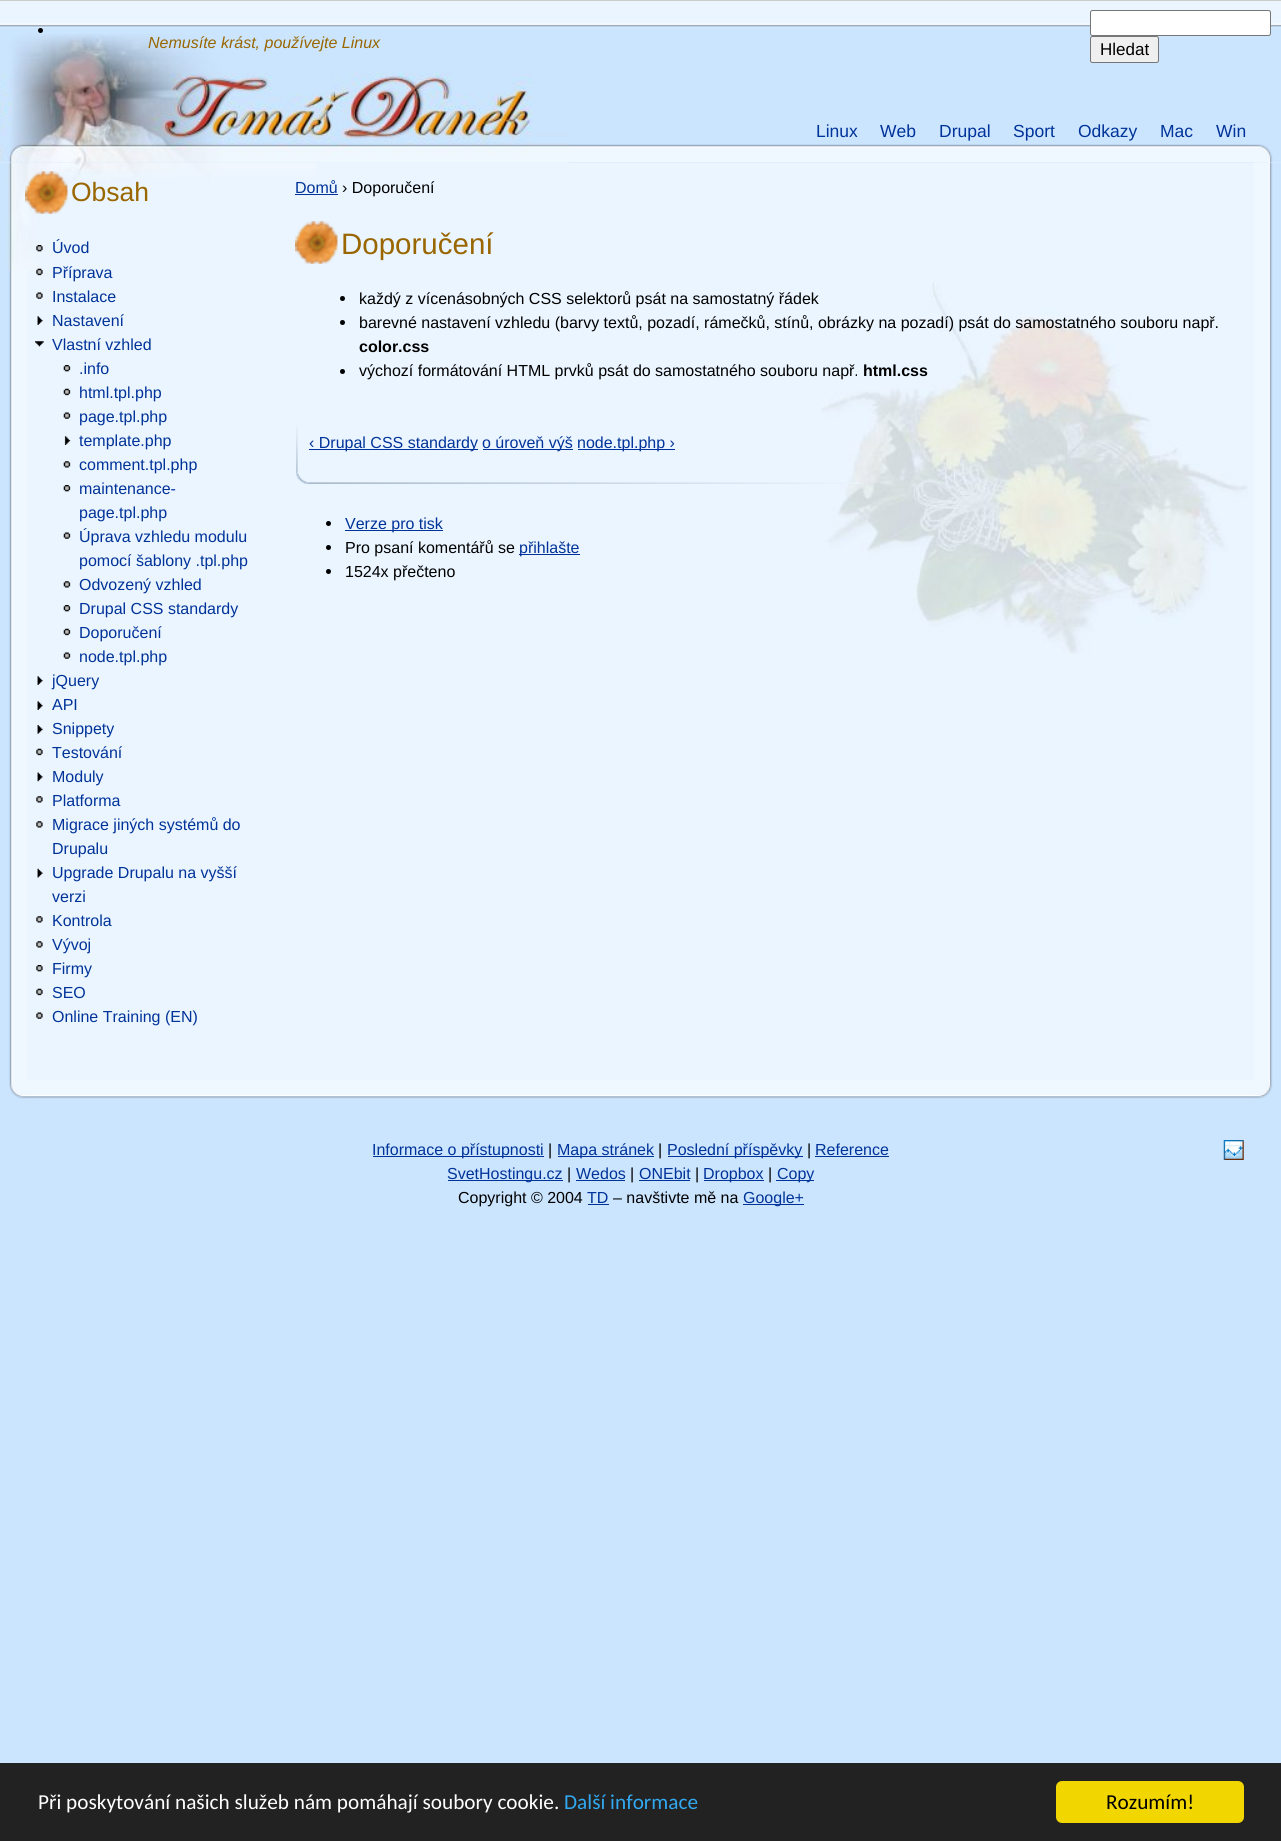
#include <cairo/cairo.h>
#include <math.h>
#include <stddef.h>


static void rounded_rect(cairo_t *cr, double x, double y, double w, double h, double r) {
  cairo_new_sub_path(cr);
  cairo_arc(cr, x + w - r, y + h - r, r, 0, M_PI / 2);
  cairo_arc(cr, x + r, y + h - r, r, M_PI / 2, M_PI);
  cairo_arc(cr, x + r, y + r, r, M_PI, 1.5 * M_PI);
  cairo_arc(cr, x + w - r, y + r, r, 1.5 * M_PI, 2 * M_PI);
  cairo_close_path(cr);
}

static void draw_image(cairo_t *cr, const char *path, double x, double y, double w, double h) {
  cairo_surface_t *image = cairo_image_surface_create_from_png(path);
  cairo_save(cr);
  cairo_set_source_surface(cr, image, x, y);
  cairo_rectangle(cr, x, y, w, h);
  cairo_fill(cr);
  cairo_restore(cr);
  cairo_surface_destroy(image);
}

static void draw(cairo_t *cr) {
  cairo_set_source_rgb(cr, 204 / 255.0, 229 / 255.0, 1);
  cairo_paint(cr);
  cairo_set_source_rgb(cr, 235 / 255.0, 245 / 255.0, 1);
  cairo_rectangle(cr, 0, 1, 1281, 27);
  cairo_fill(cr);
  draw_image(cr, "images/1.png", 0, 23, 1281, 5);
  cairo_set_source_rgb(cr, 204 / 255.0, 204 / 255.0, 204 / 255.0);
  cairo_rectangle(cr, 0, 0, 1281, 1);
  cairo_fill(cr);
  cairo_set_source_rgb(cr, 0, 0, 0);
  cairo_arc(cr, 40.5, 30.5, 2.5, 0, 2 * M_PI);
  cairo_fill(cr);
  draw_image(cr, "images/2.png", 0, 144, 1281, 19);
  draw_image(cr, "images/3.png", 0, 34, 569, 129);
  draw_image(cr, "images/4.png", 1254, 144, 27, 19);
  cairo_set_source_rgb(cr, 1, 1, 1);
  rounded_rect(cr, 1090.5, 10.5, 180, 25, 2);
  cairo_fill_preserve(cr);
  cairo_set_source_rgb(cr, 118 / 255.0, 118 / 255.0, 118 / 255.0);
  cairo_set_line_width(cr, 1);
  cairo_stroke(cr);
  cairo_set_source_rgb(cr, 239 / 255.0, 239 / 255.0, 239 / 255.0);
  rounded_rect(cr, 1090.5, 36.5, 68, 26, 2);
  cairo_fill_preserve(cr);
  cairo_set_source_rgb(cr, 118 / 255.0, 118 / 255.0, 118 / 255.0);
  cairo_stroke(cr);
  cairo_set_source_rgb(cr, 235 / 255.0, 245 / 255.0, 1);
  cairo_rectangle(cr, 27, 163, 1227, 917);
  cairo_fill(cr);
  draw_image(cr, "images/5.png", 0, 163, 28, 917);
  draw_image(cr, "images/6.png", 1253, 163, 28, 917);
  draw_image(cr, "images/7.png", 7, 163, 310, 107);
  draw_image(cr, "images/8.png", 25, 171, 43, 43);
  draw_image(cr, "images/9.png", 36, 245, 7, 7);
  draw_image(cr, "images/10.png", 36, 268, 7, 8);
  draw_image(cr, "images/11.png", 36, 292, 7, 7);
  draw_image(cr, "images/12.png", 37, 316, 6, 9);
  draw_image(cr, "images/13.png", 35, 341, 9, 6);
  draw_image(cr, "images/14.png", 63, 365, 8, 7);
  draw_image(cr, "images/15.png", 63, 388, 8, 8);
  draw_image(cr, "images/16.png", 63, 412, 8, 7);
  draw_image(cr, "images/17.png", 64, 436, 7, 9);
  draw_image(cr, "images/18.png", 63, 461, 8, 7);
  draw_image(cr, "images/14.png", 63, 485, 8, 7);
  draw_image(cr, "images/16.png", 63, 532, 8, 7);
  draw_image(cr, "images/18.png", 63, 581, 8, 7);
  draw_image(cr, "images/14.png", 63, 605, 8, 7);
  draw_image(cr, "images/15.png", 63, 628, 8, 8);
  draw_image(cr, "images/16.png", 63, 652, 8, 7);
  draw_image(cr, "images/12.png", 37, 676, 6, 9);
  draw_image(cr, "images/12.png", 37, 701, 6, 9);
  draw_image(cr, "images/19.png", 37, 725, 6, 9);
  draw_image(cr, "images/20.png", 36, 748, 7, 8);
  draw_image(cr, "images/21.png", 37, 772, 6, 10);
  draw_image(cr, "images/22.png", 36, 796, 7, 7);
  draw_image(cr, "images/22.png", 36, 821, 7, 7);
  draw_image(cr, "images/23.png", 37, 868, 6, 10);
  draw_image(cr, "images/22.png", 36, 916, 7, 7);
  draw_image(cr, "images/22.png", 36, 941, 7, 7);
  draw_image(cr, "images/24.png", 36, 965, 7, 7);
  draw_image(cr, "images/20.png", 36, 988, 7, 8);
  draw_image(cr, "images/25.png", 36, 1012, 7, 7);
  draw_image(cr, "images/26.png", 821, 282, 427, 373);
  cairo_set_source_rgb(cr, 0, 51 / 255.0, 153 / 255.0);
  cairo_rectangle(cr, 295, 194, 43, 1);
  cairo_fill(cr);
  draw_image(cr, "images/27.png", 295, 221, 43, 43);
  draw_image(cr, "images/28.png", 296, 426, 564, 58);
  cairo_set_source_rgb(cr, 0, 0, 0);
  cairo_arc(cr, 342.5, 298.5, 2.5, 0, 2 * M_PI);
  cairo_fill(cr);
  cairo_arc(cr, 342.5, 322.5, 2.5, 0, 2 * M_PI);
  cairo_fill(cr);
  cairo_arc(cr, 342.5, 371.5, 2.5, 0, 2 * M_PI);
  cairo_fill(cr);
  cairo_set_source_rgb(cr, 0, 51 / 255.0, 153 / 255.0);
  cairo_rectangle(cr, 309, 449, 169, 1);
  cairo_fill(cr);
  cairo_rectangle(cr, 483, 449, 90, 1);
  cairo_fill(cr);
  cairo_rectangle(cr, 578, 449, 97, 1);
  cairo_fill(cr);
  cairo_set_source_rgb(cr, 0, 0, 0);
  cairo_arc(cr, 328.5, 523.5, 2.5, 0, 2 * M_PI);
  cairo_fill(cr);
  cairo_set_source_rgb(cr, 0, 51 / 255.0, 153 / 255.0);
  cairo_rectangle(cr, 345, 530, 98, 1);
  cairo_fill(cr);
  cairo_set_source_rgb(cr, 0, 0, 0);
  cairo_arc(cr, 328.5, 547.5, 2.5, 0, 2 * M_PI);
  cairo_fill(cr);
  cairo_set_source_rgb(cr, 0, 51 / 255.0, 153 / 255.0);
  cairo_rectangle(cr, 519, 554, 61, 1);
  cairo_fill(cr);
  cairo_set_source_rgb(cr, 0, 0, 0);
  cairo_arc(cr, 328.5, 571.5, 2.5, 0, 2 * M_PI);
  cairo_fill(cr);
  draw_image(cr, "images/29.png", 9, 1080, 37, 19);
  draw_image(cr, "images/30.png", 1235, 1080, 38, 19);
  draw_image(cr, "images/31.png", 32, 1080, 1217, 19);
  cairo_set_source_rgb(cr, 0, 51 / 255.0, 153 / 255.0);
  cairo_rectangle(cr, 373, 1156, 171, 1);
  cairo_fill(cr);
  cairo_rectangle(cr, 558, 1156, 96, 1);
  cairo_fill(cr);
  cairo_rectangle(cr, 668, 1156, 135, 1);
  cairo_fill(cr);
  cairo_rectangle(cr, 815, 1156, 74, 1);
  cairo_fill(cr);
  cairo_rectangle(cr, 448, 1180, 115, 1);
  cairo_fill(cr);
  cairo_rectangle(cr, 576, 1180, 49, 1);
  cairo_fill(cr);
  cairo_rectangle(cr, 639, 1180, 51, 1);
  cairo_fill(cr);
  cairo_rectangle(cr, 704, 1180, 60, 1);
  cairo_fill(cr);
  cairo_rectangle(cr, 776, 1180, 38, 1);
  cairo_fill(cr);
  cairo_rectangle(cr, 588, 1204, 21, 1);
  cairo_fill(cr);
  cairo_rectangle(cr, 743, 1204, 61, 1);
  cairo_fill(cr);
  draw_image(cr, "images/32.png", 1223, 1140, 21, 20);
  cairo_set_source_rgb(cr, 34 / 255.0, 34 / 255.0, 34 / 255.0);
  cairo_rectangle(cr, 0, 1763, 1281, 78);
  cairo_fill(cr);
  cairo_set_source_rgb(cr, 241 / 255.0, 214 / 255.0, 0);
  rounded_rect(cr, 1056, 1781, 188, 42, 6);
  cairo_fill(cr);
  cairo_select_font_face(cr, "Liberation Sans", CAIRO_FONT_SLANT_ITALIC, CAIRO_FONT_WEIGHT_NORMAL);
  cairo_set_font_size(cr, 16);
  cairo_set_source_rgb(cr, 153 / 255.0, 102 / 255.0, 0);
  cairo_move_to(cr, 148, 48);
  cairo_show_text(cr, "Nemusíte krást, používejte Linux");
  cairo_select_font_face(cr, "Liberation Sans", CAIRO_FONT_SLANT_NORMAL, CAIRO_FONT_WEIGHT_NORMAL);
  cairo_set_font_size(cr, 17);
  cairo_set_source_rgb(cr, 0, 0, 0);
  cairo_move_to(cr, 1100, 55);
  cairo_show_text(cr, "Hledat");
  cairo_set_font_size(cr, 17.5);
  cairo_set_source_rgb(cr, 0, 51 / 255.0, 153 / 255.0);
  cairo_move_to(cr, 816, 137);
  cairo_show_text(cr, "Linux");
  cairo_move_to(cr, 880, 137);
  cairo_show_text(cr, "Web");
  cairo_move_to(cr, 939, 137);
  cairo_show_text(cr, "Drupal");
  cairo_move_to(cr, 1013, 137);
  cairo_show_text(cr, "Sport");
  cairo_move_to(cr, 1078, 137);
  cairo_show_text(cr, "Odkazy");
  cairo_move_to(cr, 1160, 137);
  cairo_show_text(cr, "Mac");
  cairo_move_to(cr, 1216, 137);
  cairo_show_text(cr, "Win");
  cairo_set_font_size(cr, 26.5);
  cairo_set_source_rgb(cr, 153 / 255.0, 102 / 255.0, 0);
  cairo_move_to(cr, 71, 201);
  cairo_show_text(cr, "Obsah");
  cairo_set_font_size(cr, 16);
  cairo_set_source_rgb(cr, 0, 51 / 255.0, 153 / 255.0);
  cairo_move_to(cr, 52, 253);
  cairo_show_text(cr, "Úvod");
  cairo_move_to(cr, 52, 278);
  cairo_show_text(cr, "Příprava");
  cairo_move_to(cr, 52, 302);
  cairo_show_text(cr, "Instalace");
  cairo_move_to(cr, 52, 326);
  cairo_show_text(cr, "Nastavení");
  cairo_move_to(cr, 52, 350);
  cairo_show_text(cr, "Vlastní vzhled");
  cairo_move_to(cr, 79, 374);
  cairo_show_text(cr, ".info");
  cairo_move_to(cr, 79, 398);
  cairo_show_text(cr, "html.tpl.php");
  cairo_move_to(cr, 79, 422);
  cairo_show_text(cr, "page.tpl.php");
  cairo_move_to(cr, 79, 446);
  cairo_show_text(cr, "template.php");
  cairo_move_to(cr, 79, 470);
  cairo_show_text(cr, "comment.tpl.php");
  cairo_move_to(cr, 79, 494);
  cairo_show_text(cr, "maintenance-");
  cairo_move_to(cr, 79, 518);
  cairo_show_text(cr, "page.tpl.php");
  cairo_move_to(cr, 79, 542);
  cairo_show_text(cr, "Úprava vzhledu modulu");
  cairo_move_to(cr, 79, 566);
  cairo_show_text(cr, "pomocí šablony .tpl.php");
  cairo_move_to(cr, 79, 590);
  cairo_show_text(cr, "Odvozený vzhled");
  cairo_move_to(cr, 79, 614);
  cairo_show_text(cr, "Drupal CSS standardy");
  cairo_move_to(cr, 79, 638);
  cairo_show_text(cr, "Doporučení");
  cairo_move_to(cr, 79, 662);
  cairo_show_text(cr, "node.tpl.php");
  cairo_move_to(cr, 52, 686);
  cairo_show_text(cr, "jQuery");
  cairo_move_to(cr, 52, 710);
  cairo_show_text(cr, "API");
  cairo_move_to(cr, 52, 734);
  cairo_show_text(cr, "Snippety");
  cairo_move_to(cr, 52, 758);
  cairo_show_text(cr, "Testování");
  cairo_move_to(cr, 52, 782);
  cairo_show_text(cr, "Moduly");
  cairo_move_to(cr, 52, 806);
  cairo_show_text(cr, "Platforma");
  cairo_move_to(cr, 52, 830);
  cairo_show_text(cr, "Migrace jiných systémů do");
  cairo_move_to(cr, 52, 854);
  cairo_show_text(cr, "Drupalu");
  cairo_move_to(cr, 52, 878);
  cairo_show_text(cr, "Upgrade Drupalu na vyšší");
  cairo_move_to(cr, 52, 902);
  cairo_show_text(cr, "verzi");
  cairo_move_to(cr, 52, 926);
  cairo_show_text(cr, "Kontrola");
  cairo_move_to(cr, 52, 950);
  cairo_show_text(cr, "Vývoj");
  cairo_move_to(cr, 52, 974);
  cairo_show_text(cr, "Firmy");
  cairo_move_to(cr, 52, 998);
  cairo_show_text(cr, "SEO");
  cairo_move_to(cr, 52, 1022);
  cairo_show_text(cr, "Online Training (EN)");
  cairo_move_to(cr, 295, 193);
  cairo_show_text(cr, "Domů");
  cairo_set_source_rgb(cr, 0, 0, 0);
  cairo_move_to(cr, 342, 193);
  cairo_show_text(cr, "› Doporučení");
  cairo_set_font_size(cr, 29.5);
  cairo_set_source_rgb(cr, 153 / 255.0, 102 / 255.0, 0);
  cairo_move_to(cr, 341, 254);
  cairo_show_text(cr, "Doporučení");
  cairo_set_font_size(cr, 16);
  cairo_set_source_rgb(cr, 0, 0, 0);
  cairo_move_to(cr, 359, 304);
  cairo_show_text(cr, "každý z vícenásobných CSS selektorů psát na samostatný řádek");
  cairo_move_to(cr, 359, 328);
  cairo_show_text(cr, "barevné nastavení vzhledu (barvy textů, pozadí, rámečků, stínů, obrázky na pozadí) psát do samostatného souboru např.");
  cairo_select_font_face(cr, "Liberation Sans", CAIRO_FONT_SLANT_NORMAL, CAIRO_FONT_WEIGHT_BOLD);
  cairo_move_to(cr, 359, 352);
  cairo_show_text(cr, "color.css");
  cairo_select_font_face(cr, "Liberation Sans", CAIRO_FONT_SLANT_NORMAL, CAIRO_FONT_WEIGHT_NORMAL);
  cairo_move_to(cr, 359, 376);
  cairo_show_text(cr, "výchozí formátování HTML prvků psát do samostatného souboru např.");
  cairo_select_font_face(cr, "Liberation Sans", CAIRO_FONT_SLANT_NORMAL, CAIRO_FONT_WEIGHT_BOLD);
  cairo_move_to(cr, 863, 376);
  cairo_show_text(cr, "html.css");
  cairo_select_font_face(cr, "Liberation Sans", CAIRO_FONT_SLANT_NORMAL, CAIRO_FONT_WEIGHT_NORMAL);
  cairo_set_source_rgb(cr, 0, 51 / 255.0, 153 / 255.0);
  cairo_move_to(cr, 309, 448);
  cairo_show_text(cr, "‹ Drupal CSS standardy");
  cairo_move_to(cr, 482, 448);
  cairo_show_text(cr, "o úroveň výš");
  cairo_move_to(cr, 577, 448);
  cairo_show_text(cr, "node.tpl.php ›");
  cairo_move_to(cr, 345, 529);
  cairo_show_text(cr, "Verze pro tisk");
  cairo_set_source_rgb(cr, 0, 0, 0);
  cairo_move_to(cr, 345, 553);
  cairo_show_text(cr, "Pro psaní komentářů se");
  cairo_set_source_rgb(cr, 0, 51 / 255.0, 153 / 255.0);
  cairo_move_to(cr, 519, 553);
  cairo_show_text(cr, "přihlašte");
  cairo_set_source_rgb(cr, 0, 0, 0);
  cairo_move_to(cr, 345, 577);
  cairo_show_text(cr, "1524x přečteno");
  cairo_set_source_rgb(cr, 0, 51 / 255.0, 153 / 255.0);
  cairo_move_to(cr, 372, 1155);
  cairo_show_text(cr, "Informace o přístupnosti");
  cairo_set_source_rgb(cr, 0, 0, 0);
  cairo_move_to(cr, 548, 1155);
  cairo_show_text(cr, "|");
  cairo_set_source_rgb(cr, 0, 51 / 255.0, 153 / 255.0);
  cairo_move_to(cr, 557, 1155);
  cairo_show_text(cr, "Mapa stránek");
  cairo_set_source_rgb(cr, 0, 0, 0);
  cairo_move_to(cr, 658, 1155);
  cairo_show_text(cr, "|");
  cairo_set_source_rgb(cr, 0, 51 / 255.0, 153 / 255.0);
  cairo_move_to(cr, 667, 1155);
  cairo_show_text(cr, "Poslední příspěvky");
  cairo_set_source_rgb(cr, 0, 0, 0);
  cairo_move_to(cr, 807, 1155);
  cairo_show_text(cr, "|");
  cairo_set_source_rgb(cr, 0, 51 / 255.0, 153 / 255.0);
  cairo_move_to(cr, 815, 1155);
  cairo_show_text(cr, "Reference");
  cairo_move_to(cr, 447, 1179);
  cairo_show_text(cr, "SvetHostingu.cz");
  cairo_set_source_rgb(cr, 0, 0, 0);
  cairo_move_to(cr, 567, 1179);
  cairo_show_text(cr, "|");
  cairo_set_source_rgb(cr, 0, 51 / 255.0, 153 / 255.0);
  cairo_move_to(cr, 576, 1179);
  cairo_show_text(cr, "Wedos");
  cairo_set_source_rgb(cr, 0, 0, 0);
  cairo_move_to(cr, 630, 1179);
  cairo_show_text(cr, "|");
  cairo_set_source_rgb(cr, 0, 51 / 255.0, 153 / 255.0);
  cairo_move_to(cr, 639, 1179);
  cairo_show_text(cr, "ONEbit");
  cairo_set_source_rgb(cr, 0, 0, 0);
  cairo_move_to(cr, 695, 1179);
  cairo_show_text(cr, "|");
  cairo_set_source_rgb(cr, 0, 51 / 255.0, 153 / 255.0);
  cairo_move_to(cr, 703, 1179);
  cairo_show_text(cr, "Dropbox");
  cairo_set_source_rgb(cr, 0, 0, 0);
  cairo_move_to(cr, 768, 1179);
  cairo_show_text(cr, "|");
  cairo_set_source_rgb(cr, 0, 51 / 255.0, 153 / 255.0);
  cairo_move_to(cr, 777, 1179);
  cairo_show_text(cr, "Copy");
  cairo_set_source_rgb(cr, 0, 0, 0);
  cairo_move_to(cr, 458, 1203);
  cairo_show_text(cr, "Copyright © 2004");
  cairo_set_source_rgb(cr, 0, 51 / 255.0, 153 / 255.0);
  cairo_move_to(cr, 587, 1203);
  cairo_show_text(cr, "TD");
  cairo_set_source_rgb(cr, 0, 0, 0);
  cairo_move_to(cr, 613, 1203);
  cairo_show_text(cr, "– navštivte mě na");
  cairo_set_source_rgb(cr, 0, 51 / 255.0, 153 / 255.0);
  cairo_move_to(cr, 743, 1203);
  cairo_show_text(cr, "Google+");
  cairo_select_font_face(cr, "Carlito", CAIRO_FONT_SLANT_NORMAL, CAIRO_FONT_WEIGHT_NORMAL);
  cairo_set_font_size(cr, 21.25);
  cairo_set_source_rgb(cr, 1, 1, 1);
  cairo_move_to(cr, 38, 1809);
  cairo_show_text(cr, "Při poskytování našich služeb nám pomáhají soubory cookie.");
  cairo_set_source_rgb(cr, 49 / 255.0, 168 / 255.0, 240 / 255.0);
  cairo_move_to(cr, 564, 1809);
  cairo_show_text(cr, "Další informace");
  cairo_set_source_rgb(cr, 0, 0, 0);
  cairo_move_to(cr, 1106, 1809);
  cairo_show_text(cr, "Rozumím!");
}

int main(void) {
  cairo_surface_t *surface = cairo_image_surface_create(CAIRO_FORMAT_RGB24, 1281, 1841);
  cairo_t *cr = cairo_create(surface);
  cairo_font_options_t *options = cairo_font_options_create();
  cairo_font_options_set_hint_metrics(options, CAIRO_HINT_METRICS_OFF);
  cairo_font_options_set_hint_style(options, CAIRO_HINT_STYLE_NONE);
  cairo_set_font_options(cr, options);
  cairo_set_miter_limit(cr, 4);
  draw(cr);
  cairo_surface_write_to_png(surface, "out.png");
  cairo_font_options_destroy(options);
  cairo_destroy(cr);
  cairo_surface_destroy(surface);
  return 0;
}
